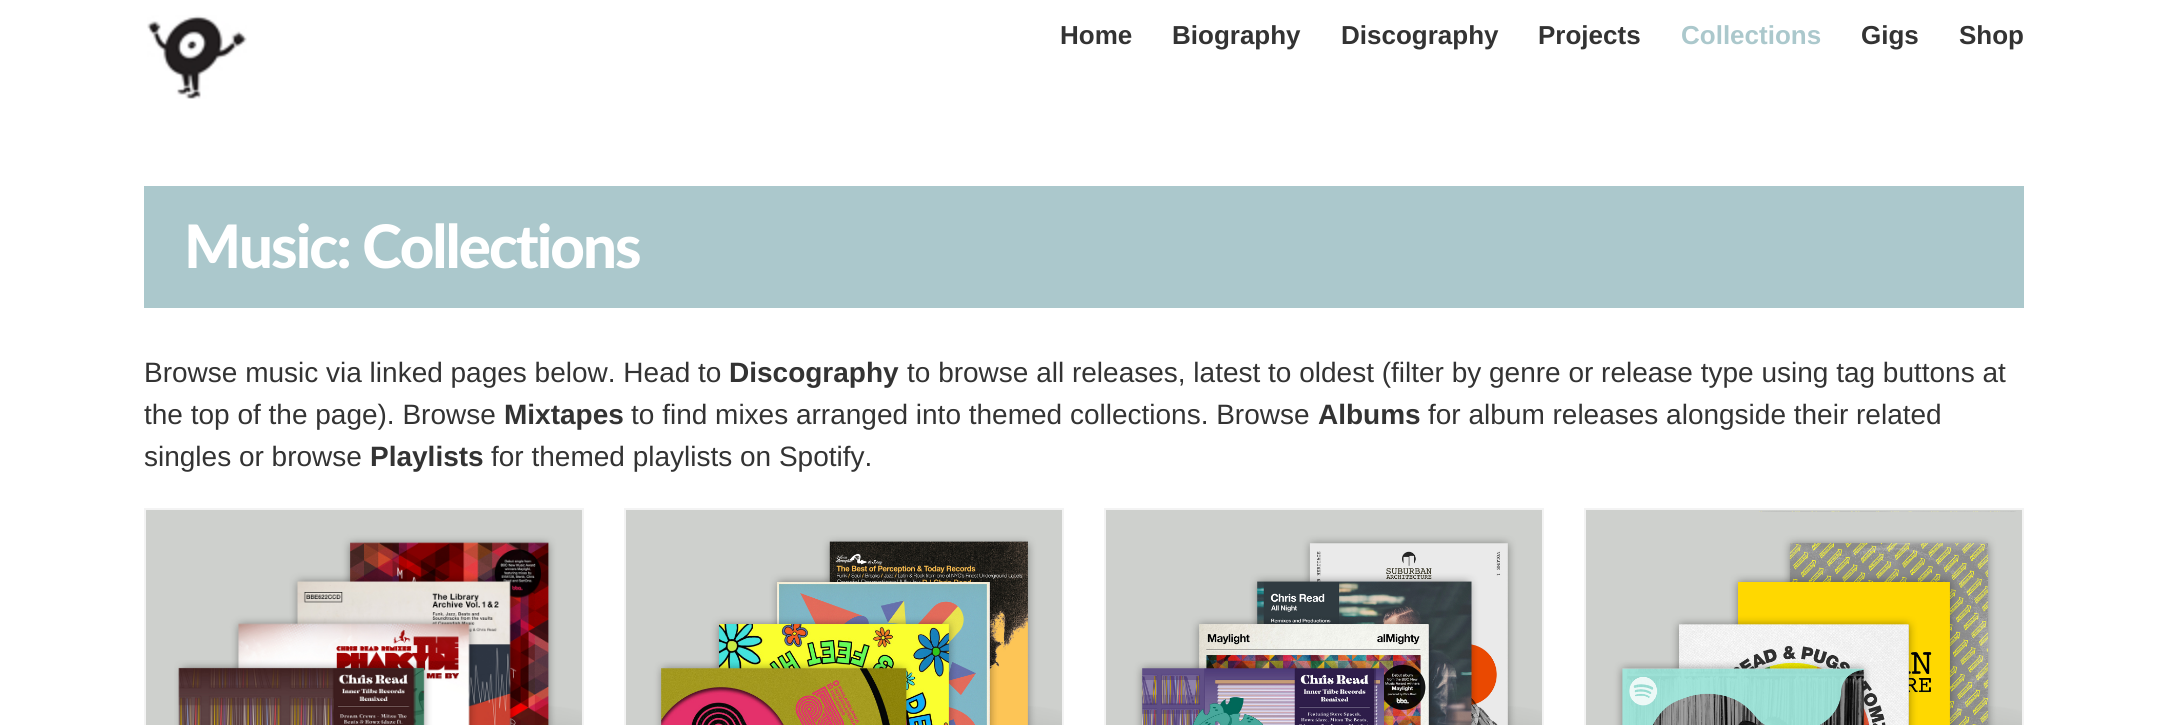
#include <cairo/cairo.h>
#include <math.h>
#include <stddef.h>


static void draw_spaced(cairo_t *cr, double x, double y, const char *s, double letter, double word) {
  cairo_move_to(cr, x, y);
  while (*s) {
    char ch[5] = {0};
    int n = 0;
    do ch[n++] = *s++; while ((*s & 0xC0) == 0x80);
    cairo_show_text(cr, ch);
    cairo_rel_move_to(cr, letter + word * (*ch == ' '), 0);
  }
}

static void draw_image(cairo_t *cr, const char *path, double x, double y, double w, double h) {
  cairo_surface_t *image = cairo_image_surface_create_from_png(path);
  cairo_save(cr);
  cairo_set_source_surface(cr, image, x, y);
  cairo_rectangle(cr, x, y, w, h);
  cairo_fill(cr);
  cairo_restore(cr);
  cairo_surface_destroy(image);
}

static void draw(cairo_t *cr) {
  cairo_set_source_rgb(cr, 1, 1, 1);
  cairo_paint(cr);
  draw_image(cr, "images/1.png", 147, 15, 100, 84);
  cairo_set_source_rgb(cr, 171 / 255.0, 200 / 255.0, 204 / 255.0);
  cairo_rectangle(cr, 144, 186, 1880, 122);
  cairo_fill(cr);
  cairo_rectangle(cr, 145, 509, 438, 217);
  cairo_set_source_rgb(cr, 243 / 255.0, 243 / 255.0, 243 / 255.0);
  cairo_stroke(cr);
  draw_image(cr, "images/2.png", 146, 510, 436, 215);
  cairo_rectangle(cr, 625, 509, 438, 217);
  cairo_stroke(cr);
  draw_image(cr, "images/3.png", 626, 510, 436, 215);
  cairo_rectangle(cr, 1105, 509, 438, 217);
  cairo_stroke(cr);
  draw_image(cr, "images/4.png", 1106, 510, 436, 215);
  cairo_rectangle(cr, 1585, 509, 438, 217);
  cairo_stroke(cr);
  draw_image(cr, "images/5.png", 1586, 510, 436, 215);
  cairo_select_font_face(cr, "Liberation Sans", CAIRO_FONT_SLANT_NORMAL, CAIRO_FONT_WEIGHT_BOLD);
  cairo_set_font_size(cr, 26);
  cairo_set_source_rgb(cr, 51 / 255.0, 51 / 255.0, 51 / 255.0);
  cairo_move_to(cr, 1060, 44);
  cairo_show_text(cr, "Home");
  cairo_move_to(cr, 1172, 44);
  cairo_show_text(cr, "Biography");
  cairo_move_to(cr, 1341, 44);
  cairo_show_text(cr, "Discography");
  cairo_move_to(cr, 1538, 44);
  cairo_show_text(cr, "Projects");
  cairo_set_source_rgb(cr, 171 / 255.0, 200 / 255.0, 204 / 255.0);
  cairo_move_to(cr, 1681, 44);
  cairo_show_text(cr, "Collections");
  cairo_set_source_rgb(cr, 51 / 255.0, 51 / 255.0, 51 / 255.0);
  cairo_move_to(cr, 1861, 44);
  cairo_show_text(cr, "Gigs");
  cairo_move_to(cr, 1959, 44);
  cairo_show_text(cr, "Shop");
  cairo_select_font_face(cr, "Lato Black", CAIRO_FONT_SLANT_NORMAL, CAIRO_FONT_WEIGHT_NORMAL);
  cairo_set_font_size(cr, 60);
  cairo_set_source_rgb(cr, 1, 1, 1);
  draw_spaced(cr, 184, 268, "Music: Collections", -2, 0);
  cairo_select_font_face(cr, "Liberation Sans", CAIRO_FONT_SLANT_NORMAL, CAIRO_FONT_WEIGHT_NORMAL);
  cairo_set_font_size(cr, 28);
  cairo_set_source_rgb(cr, 51 / 255.0, 51 / 255.0, 51 / 255.0);
  cairo_move_to(cr, 144, 382);
  cairo_show_text(cr, "Browse music via linked pages below. Head to");
  cairo_select_font_face(cr, "Liberation Sans", CAIRO_FONT_SLANT_NORMAL, CAIRO_FONT_WEIGHT_BOLD);
  cairo_move_to(cr, 729, 382);
  cairo_show_text(cr, "Discography");
  cairo_select_font_face(cr, "Liberation Sans", CAIRO_FONT_SLANT_NORMAL, CAIRO_FONT_WEIGHT_NORMAL);
  cairo_move_to(cr, 907, 382);
  cairo_show_text(cr, "to browse all releases, latest to oldest (filter by genre or release type using tag buttons at");
  cairo_move_to(cr, 144, 424);
  cairo_show_text(cr, "the top of the page). Browse");
  cairo_select_font_face(cr, "Liberation Sans", CAIRO_FONT_SLANT_NORMAL, CAIRO_FONT_WEIGHT_BOLD);
  cairo_move_to(cr, 504, 424);
  cairo_show_text(cr, "Mixtapes");
  cairo_select_font_face(cr, "Liberation Sans", CAIRO_FONT_SLANT_NORMAL, CAIRO_FONT_WEIGHT_NORMAL);
  cairo_move_to(cr, 631, 424);
  cairo_show_text(cr, "to find mixes arranged into themed collections. Browse");
  cairo_select_font_face(cr, "Liberation Sans", CAIRO_FONT_SLANT_NORMAL, CAIRO_FONT_WEIGHT_BOLD);
  cairo_move_to(cr, 1318, 424);
  cairo_show_text(cr, "Albums");
  cairo_select_font_face(cr, "Liberation Sans", CAIRO_FONT_SLANT_NORMAL, CAIRO_FONT_WEIGHT_NORMAL);
  cairo_move_to(cr, 1428, 424);
  cairo_show_text(cr, "for album releases alongside their related");
  cairo_move_to(cr, 144, 466);
  cairo_show_text(cr, "singles or browse");
  cairo_select_font_face(cr, "Liberation Sans", CAIRO_FONT_SLANT_NORMAL, CAIRO_FONT_WEIGHT_BOLD);
  cairo_move_to(cr, 370, 466);
  cairo_show_text(cr, "Playlists");
  cairo_select_font_face(cr, "Liberation Sans", CAIRO_FONT_SLANT_NORMAL, CAIRO_FONT_WEIGHT_NORMAL);
  cairo_move_to(cr, 491, 466);
  cairo_show_text(cr, "for themed playlists on Spotify.");
}

int main(void) {
  cairo_surface_t *surface = cairo_image_surface_create(CAIRO_FORMAT_RGB24, 2167, 725);
  cairo_t *cr = cairo_create(surface);
  cairo_font_options_t *options = cairo_font_options_create();
  cairo_font_options_set_hint_metrics(options, CAIRO_HINT_METRICS_OFF);
  cairo_font_options_set_hint_style(options, CAIRO_HINT_STYLE_NONE);
  cairo_set_font_options(cr, options);
  cairo_set_miter_limit(cr, 4);
  draw(cr);
  cairo_surface_write_to_png(surface, "out.png");
  cairo_font_options_destroy(options);
  cairo_destroy(cr);
  cairo_surface_destroy(surface);
  return 0;
}
